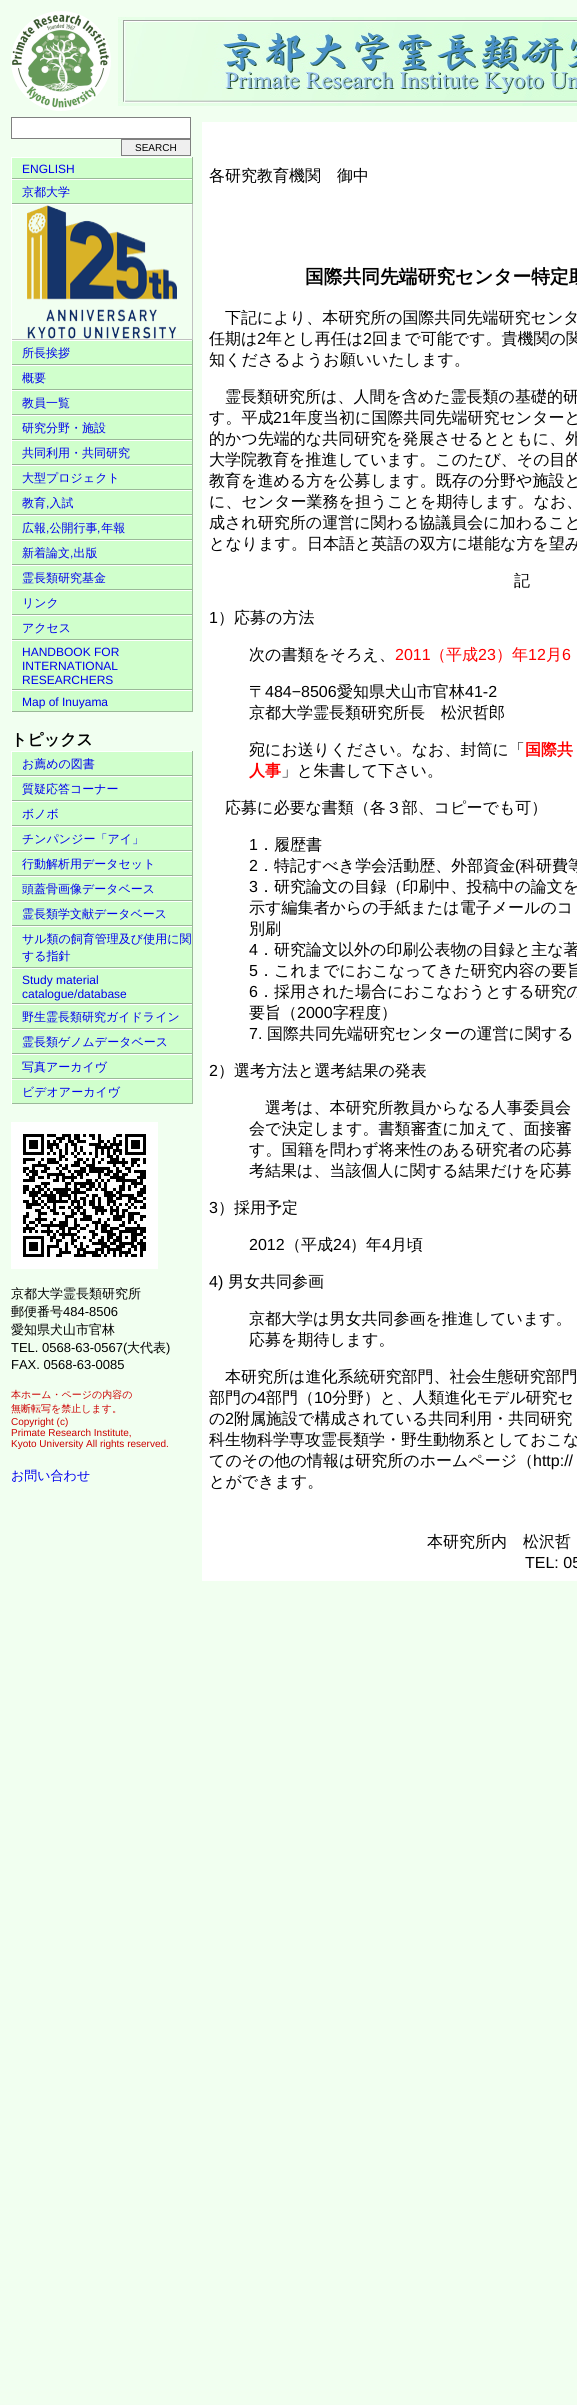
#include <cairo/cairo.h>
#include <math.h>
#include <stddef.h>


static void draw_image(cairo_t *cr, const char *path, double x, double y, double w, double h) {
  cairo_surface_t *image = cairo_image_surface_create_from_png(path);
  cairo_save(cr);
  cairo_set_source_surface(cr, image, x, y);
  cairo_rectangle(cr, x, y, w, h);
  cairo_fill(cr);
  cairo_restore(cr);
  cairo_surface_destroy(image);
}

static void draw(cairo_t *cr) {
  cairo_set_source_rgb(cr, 241 / 255.0, 1, 240 / 255.0);
  cairo_paint(cr);
  draw_image(cr, "images/1.png", 11, 11, 100, 100);
  draw_image(cr, "images/2.png", 118, 17, 459, 89);
  cairo_set_source_rgb(cr, 1, 1, 1);
  cairo_rectangle(cr, 11.5, 117.5, 179, 21);
  cairo_fill_preserve(cr);
  cairo_set_source_rgb(cr, 128 / 255.0, 128 / 255.0, 128 / 255.0);
  cairo_set_line_width(cr, 1);
  cairo_stroke(cr);
  cairo_set_source_rgb(cr, 239 / 255.0, 239 / 255.0, 239 / 255.0);
  cairo_rectangle(cr, 121.5, 139.5, 69, 16);
  cairo_fill_preserve(cr);
  cairo_set_source_rgb(cr, 128 / 255.0, 128 / 255.0, 128 / 255.0);
  cairo_stroke(cr);
  cairo_set_source_rgb(cr, 208 / 255.0, 1, 204 / 255.0);
  cairo_rectangle(cr, 12, 158, 180, 20);
  cairo_fill(cr);
  cairo_set_source_rgb(cr, 1, 1, 1);
  cairo_rectangle(cr, 11, 157, 182, 1);
  cairo_fill(cr);
  cairo_set_source_rgb(cr, 155 / 255.0, 184 / 255.0, 153 / 255.0);
  cairo_rectangle(cr, 192, 157, 1, 22);
  cairo_fill(cr);
  cairo_rectangle(cr, 11, 178, 182, 1);
  cairo_fill(cr);
  cairo_set_source_rgb(cr, 1, 1, 1);
  cairo_rectangle(cr, 11, 157, 1, 22);
  cairo_fill(cr);
  cairo_set_source_rgb(cr, 208 / 255.0, 1, 204 / 255.0);
  cairo_rectangle(cr, 12, 180, 180, 23);
  cairo_fill(cr);
  cairo_set_source_rgb(cr, 1, 1, 1);
  cairo_rectangle(cr, 11, 179, 182, 1);
  cairo_fill(cr);
  cairo_set_source_rgb(cr, 155 / 255.0, 184 / 255.0, 153 / 255.0);
  cairo_rectangle(cr, 192, 179, 1, 25);
  cairo_fill(cr);
  cairo_rectangle(cr, 11, 203, 182, 1);
  cairo_fill(cr);
  cairo_set_source_rgb(cr, 1, 1, 1);
  cairo_rectangle(cr, 11, 179, 1, 25);
  cairo_fill(cr);
  cairo_rectangle(cr, 11, 204, 182, 1);
  cairo_fill(cr);
  cairo_set_source_rgb(cr, 192 / 255.0, 192 / 255.0, 192 / 255.0);
  cairo_rectangle(cr, 192, 204, 1, 136);
  cairo_fill(cr);
  cairo_rectangle(cr, 11, 339, 182, 1);
  cairo_fill(cr);
  cairo_set_source_rgb(cr, 1, 1, 1);
  cairo_rectangle(cr, 11, 204, 1, 136);
  cairo_fill(cr);
  draw_image(cr, "images/3.png", 27, 205, 150, 134);
  cairo_set_source_rgb(cr, 208 / 255.0, 1, 204 / 255.0);
  cairo_rectangle(cr, 12, 341, 180, 23);
  cairo_fill(cr);
  cairo_set_source_rgb(cr, 1, 1, 1);
  cairo_rectangle(cr, 11, 340, 182, 1);
  cairo_fill(cr);
  cairo_set_source_rgb(cr, 155 / 255.0, 184 / 255.0, 153 / 255.0);
  cairo_rectangle(cr, 192, 340, 1, 25);
  cairo_fill(cr);
  cairo_rectangle(cr, 11, 364, 182, 1);
  cairo_fill(cr);
  cairo_set_source_rgb(cr, 1, 1, 1);
  cairo_rectangle(cr, 11, 340, 1, 25);
  cairo_fill(cr);
  cairo_set_source_rgb(cr, 208 / 255.0, 1, 204 / 255.0);
  cairo_rectangle(cr, 12, 366, 180, 23);
  cairo_fill(cr);
  cairo_set_source_rgb(cr, 1, 1, 1);
  cairo_rectangle(cr, 11, 365, 182, 1);
  cairo_fill(cr);
  cairo_set_source_rgb(cr, 155 / 255.0, 184 / 255.0, 153 / 255.0);
  cairo_rectangle(cr, 192, 365, 1, 25);
  cairo_fill(cr);
  cairo_rectangle(cr, 11, 389, 182, 1);
  cairo_fill(cr);
  cairo_set_source_rgb(cr, 1, 1, 1);
  cairo_rectangle(cr, 11, 365, 1, 25);
  cairo_fill(cr);
  cairo_set_source_rgb(cr, 208 / 255.0, 1, 204 / 255.0);
  cairo_rectangle(cr, 12, 391, 180, 23);
  cairo_fill(cr);
  cairo_set_source_rgb(cr, 1, 1, 1);
  cairo_rectangle(cr, 11, 390, 182, 1);
  cairo_fill(cr);
  cairo_set_source_rgb(cr, 155 / 255.0, 184 / 255.0, 153 / 255.0);
  cairo_rectangle(cr, 192, 390, 1, 25);
  cairo_fill(cr);
  cairo_rectangle(cr, 11, 414, 182, 1);
  cairo_fill(cr);
  cairo_set_source_rgb(cr, 1, 1, 1);
  cairo_rectangle(cr, 11, 390, 1, 25);
  cairo_fill(cr);
  cairo_set_source_rgb(cr, 208 / 255.0, 1, 204 / 255.0);
  cairo_rectangle(cr, 12, 416, 180, 23);
  cairo_fill(cr);
  cairo_set_source_rgb(cr, 1, 1, 1);
  cairo_rectangle(cr, 11, 415, 182, 1);
  cairo_fill(cr);
  cairo_set_source_rgb(cr, 155 / 255.0, 184 / 255.0, 153 / 255.0);
  cairo_rectangle(cr, 192, 415, 1, 25);
  cairo_fill(cr);
  cairo_rectangle(cr, 11, 439, 182, 1);
  cairo_fill(cr);
  cairo_set_source_rgb(cr, 1, 1, 1);
  cairo_rectangle(cr, 11, 415, 1, 25);
  cairo_fill(cr);
  cairo_set_source_rgb(cr, 208 / 255.0, 1, 204 / 255.0);
  cairo_rectangle(cr, 12, 441, 180, 23);
  cairo_fill(cr);
  cairo_set_source_rgb(cr, 1, 1, 1);
  cairo_rectangle(cr, 11, 440, 182, 1);
  cairo_fill(cr);
  cairo_set_source_rgb(cr, 155 / 255.0, 184 / 255.0, 153 / 255.0);
  cairo_rectangle(cr, 192, 440, 1, 25);
  cairo_fill(cr);
  cairo_rectangle(cr, 11, 464, 182, 1);
  cairo_fill(cr);
  cairo_set_source_rgb(cr, 1, 1, 1);
  cairo_rectangle(cr, 11, 440, 1, 25);
  cairo_fill(cr);
  cairo_set_source_rgb(cr, 208 / 255.0, 1, 204 / 255.0);
  cairo_rectangle(cr, 12, 466, 180, 23);
  cairo_fill(cr);
  cairo_set_source_rgb(cr, 1, 1, 1);
  cairo_rectangle(cr, 11, 465, 182, 1);
  cairo_fill(cr);
  cairo_set_source_rgb(cr, 155 / 255.0, 184 / 255.0, 153 / 255.0);
  cairo_rectangle(cr, 192, 465, 1, 25);
  cairo_fill(cr);
  cairo_rectangle(cr, 11, 489, 182, 1);
  cairo_fill(cr);
  cairo_set_source_rgb(cr, 1, 1, 1);
  cairo_rectangle(cr, 11, 465, 1, 25);
  cairo_fill(cr);
  cairo_set_source_rgb(cr, 208 / 255.0, 1, 204 / 255.0);
  cairo_rectangle(cr, 12, 491, 180, 23);
  cairo_fill(cr);
  cairo_set_source_rgb(cr, 1, 1, 1);
  cairo_rectangle(cr, 11, 490, 182, 1);
  cairo_fill(cr);
  cairo_set_source_rgb(cr, 155 / 255.0, 184 / 255.0, 153 / 255.0);
  cairo_rectangle(cr, 192, 490, 1, 25);
  cairo_fill(cr);
  cairo_rectangle(cr, 11, 514, 182, 1);
  cairo_fill(cr);
  cairo_set_source_rgb(cr, 1, 1, 1);
  cairo_rectangle(cr, 11, 490, 1, 25);
  cairo_fill(cr);
  cairo_set_source_rgb(cr, 208 / 255.0, 1, 204 / 255.0);
  cairo_rectangle(cr, 12, 516, 180, 23);
  cairo_fill(cr);
  cairo_set_source_rgb(cr, 1, 1, 1);
  cairo_rectangle(cr, 11, 515, 182, 1);
  cairo_fill(cr);
  cairo_set_source_rgb(cr, 155 / 255.0, 184 / 255.0, 153 / 255.0);
  cairo_rectangle(cr, 192, 515, 1, 25);
  cairo_fill(cr);
  cairo_rectangle(cr, 11, 539, 182, 1);
  cairo_fill(cr);
  cairo_set_source_rgb(cr, 1, 1, 1);
  cairo_rectangle(cr, 11, 515, 1, 25);
  cairo_fill(cr);
  cairo_set_source_rgb(cr, 208 / 255.0, 1, 204 / 255.0);
  cairo_rectangle(cr, 12, 541, 180, 23);
  cairo_fill(cr);
  cairo_set_source_rgb(cr, 1, 1, 1);
  cairo_rectangle(cr, 11, 540, 182, 1);
  cairo_fill(cr);
  cairo_set_source_rgb(cr, 155 / 255.0, 184 / 255.0, 153 / 255.0);
  cairo_rectangle(cr, 192, 540, 1, 25);
  cairo_fill(cr);
  cairo_rectangle(cr, 11, 564, 182, 1);
  cairo_fill(cr);
  cairo_set_source_rgb(cr, 1, 1, 1);
  cairo_rectangle(cr, 11, 540, 1, 25);
  cairo_fill(cr);
  cairo_set_source_rgb(cr, 208 / 255.0, 1, 204 / 255.0);
  cairo_rectangle(cr, 12, 566, 180, 23);
  cairo_fill(cr);
  cairo_set_source_rgb(cr, 1, 1, 1);
  cairo_rectangle(cr, 11, 565, 182, 1);
  cairo_fill(cr);
  cairo_set_source_rgb(cr, 155 / 255.0, 184 / 255.0, 153 / 255.0);
  cairo_rectangle(cr, 192, 565, 1, 25);
  cairo_fill(cr);
  cairo_rectangle(cr, 11, 589, 182, 1);
  cairo_fill(cr);
  cairo_set_source_rgb(cr, 1, 1, 1);
  cairo_rectangle(cr, 11, 565, 1, 25);
  cairo_fill(cr);
  cairo_set_source_rgb(cr, 208 / 255.0, 1, 204 / 255.0);
  cairo_rectangle(cr, 12, 591, 180, 23);
  cairo_fill(cr);
  cairo_set_source_rgb(cr, 1, 1, 1);
  cairo_rectangle(cr, 11, 590, 182, 1);
  cairo_fill(cr);
  cairo_set_source_rgb(cr, 155 / 255.0, 184 / 255.0, 153 / 255.0);
  cairo_rectangle(cr, 192, 590, 1, 25);
  cairo_fill(cr);
  cairo_rectangle(cr, 11, 614, 182, 1);
  cairo_fill(cr);
  cairo_set_source_rgb(cr, 1, 1, 1);
  cairo_rectangle(cr, 11, 590, 1, 25);
  cairo_fill(cr);
  cairo_set_source_rgb(cr, 208 / 255.0, 1, 204 / 255.0);
  cairo_rectangle(cr, 12, 616, 180, 23);
  cairo_fill(cr);
  cairo_set_source_rgb(cr, 1, 1, 1);
  cairo_rectangle(cr, 11, 615, 182, 1);
  cairo_fill(cr);
  cairo_set_source_rgb(cr, 155 / 255.0, 184 / 255.0, 153 / 255.0);
  cairo_rectangle(cr, 192, 615, 1, 25);
  cairo_fill(cr);
  cairo_rectangle(cr, 11, 639, 182, 1);
  cairo_fill(cr);
  cairo_set_source_rgb(cr, 1, 1, 1);
  cairo_rectangle(cr, 11, 615, 1, 25);
  cairo_fill(cr);
  cairo_set_source_rgb(cr, 208 / 255.0, 1, 204 / 255.0);
  cairo_rectangle(cr, 12, 641, 180, 48);
  cairo_fill(cr);
  cairo_set_source_rgb(cr, 1, 1, 1);
  cairo_rectangle(cr, 11, 640, 182, 1);
  cairo_fill(cr);
  cairo_set_source_rgb(cr, 155 / 255.0, 184 / 255.0, 153 / 255.0);
  cairo_rectangle(cr, 192, 640, 1, 50);
  cairo_fill(cr);
  cairo_rectangle(cr, 11, 689, 182, 1);
  cairo_fill(cr);
  cairo_set_source_rgb(cr, 1, 1, 1);
  cairo_rectangle(cr, 11, 640, 1, 50);
  cairo_fill(cr);
  cairo_set_source_rgb(cr, 208 / 255.0, 1, 204 / 255.0);
  cairo_rectangle(cr, 12, 691, 180, 20);
  cairo_fill(cr);
  cairo_set_source_rgb(cr, 1, 1, 1);
  cairo_rectangle(cr, 11, 690, 182, 1);
  cairo_fill(cr);
  cairo_set_source_rgb(cr, 155 / 255.0, 184 / 255.0, 153 / 255.0);
  cairo_rectangle(cr, 192, 690, 1, 22);
  cairo_fill(cr);
  cairo_rectangle(cr, 11, 711, 182, 1);
  cairo_fill(cr);
  cairo_set_source_rgb(cr, 1, 1, 1);
  cairo_rectangle(cr, 11, 690, 1, 22);
  cairo_fill(cr);
  cairo_set_source_rgb(cr, 208 / 255.0, 1, 204 / 255.0);
  cairo_rectangle(cr, 12, 752, 180, 23);
  cairo_fill(cr);
  cairo_set_source_rgb(cr, 1, 1, 1);
  cairo_rectangle(cr, 11, 751, 182, 1);
  cairo_fill(cr);
  cairo_set_source_rgb(cr, 155 / 255.0, 184 / 255.0, 153 / 255.0);
  cairo_rectangle(cr, 192, 751, 1, 25);
  cairo_fill(cr);
  cairo_rectangle(cr, 11, 775, 182, 1);
  cairo_fill(cr);
  cairo_set_source_rgb(cr, 1, 1, 1);
  cairo_rectangle(cr, 11, 751, 1, 25);
  cairo_fill(cr);
  cairo_set_source_rgb(cr, 208 / 255.0, 1, 204 / 255.0);
  cairo_rectangle(cr, 12, 777, 180, 23);
  cairo_fill(cr);
  cairo_set_source_rgb(cr, 1, 1, 1);
  cairo_rectangle(cr, 11, 776, 182, 1);
  cairo_fill(cr);
  cairo_set_source_rgb(cr, 155 / 255.0, 184 / 255.0, 153 / 255.0);
  cairo_rectangle(cr, 192, 776, 1, 25);
  cairo_fill(cr);
  cairo_rectangle(cr, 11, 800, 182, 1);
  cairo_fill(cr);
  cairo_set_source_rgb(cr, 1, 1, 1);
  cairo_rectangle(cr, 11, 776, 1, 25);
  cairo_fill(cr);
  cairo_set_source_rgb(cr, 208 / 255.0, 1, 204 / 255.0);
  cairo_rectangle(cr, 12, 802, 180, 23);
  cairo_fill(cr);
  cairo_set_source_rgb(cr, 1, 1, 1);
  cairo_rectangle(cr, 11, 801, 182, 1);
  cairo_fill(cr);
  cairo_set_source_rgb(cr, 155 / 255.0, 184 / 255.0, 153 / 255.0);
  cairo_rectangle(cr, 192, 801, 1, 25);
  cairo_fill(cr);
  cairo_rectangle(cr, 11, 825, 182, 1);
  cairo_fill(cr);
  cairo_set_source_rgb(cr, 1, 1, 1);
  cairo_rectangle(cr, 11, 801, 1, 25);
  cairo_fill(cr);
  cairo_set_source_rgb(cr, 208 / 255.0, 1, 204 / 255.0);
  cairo_rectangle(cr, 12, 827, 180, 23);
  cairo_fill(cr);
  cairo_set_source_rgb(cr, 1, 1, 1);
  cairo_rectangle(cr, 11, 826, 182, 1);
  cairo_fill(cr);
  cairo_set_source_rgb(cr, 155 / 255.0, 184 / 255.0, 153 / 255.0);
  cairo_rectangle(cr, 192, 826, 1, 25);
  cairo_fill(cr);
  cairo_rectangle(cr, 11, 850, 182, 1);
  cairo_fill(cr);
  cairo_set_source_rgb(cr, 1, 1, 1);
  cairo_rectangle(cr, 11, 826, 1, 25);
  cairo_fill(cr);
  cairo_set_source_rgb(cr, 208 / 255.0, 1, 204 / 255.0);
  cairo_rectangle(cr, 12, 852, 180, 23);
  cairo_fill(cr);
  cairo_set_source_rgb(cr, 1, 1, 1);
  cairo_rectangle(cr, 11, 851, 182, 1);
  cairo_fill(cr);
  cairo_set_source_rgb(cr, 155 / 255.0, 184 / 255.0, 153 / 255.0);
  cairo_rectangle(cr, 192, 851, 1, 25);
  cairo_fill(cr);
  cairo_rectangle(cr, 11, 875, 182, 1);
  cairo_fill(cr);
  cairo_set_source_rgb(cr, 1, 1, 1);
  cairo_rectangle(cr, 11, 851, 1, 25);
  cairo_fill(cr);
  cairo_set_source_rgb(cr, 208 / 255.0, 1, 204 / 255.0);
  cairo_rectangle(cr, 12, 877, 180, 23);
  cairo_fill(cr);
  cairo_set_source_rgb(cr, 1, 1, 1);
  cairo_rectangle(cr, 11, 876, 182, 1);
  cairo_fill(cr);
  cairo_set_source_rgb(cr, 155 / 255.0, 184 / 255.0, 153 / 255.0);
  cairo_rectangle(cr, 192, 876, 1, 25);
  cairo_fill(cr);
  cairo_rectangle(cr, 11, 900, 182, 1);
  cairo_fill(cr);
  cairo_set_source_rgb(cr, 1, 1, 1);
  cairo_rectangle(cr, 11, 876, 1, 25);
  cairo_fill(cr);
  cairo_set_source_rgb(cr, 208 / 255.0, 1, 204 / 255.0);
  cairo_rectangle(cr, 12, 902, 180, 23);
  cairo_fill(cr);
  cairo_set_source_rgb(cr, 1, 1, 1);
  cairo_rectangle(cr, 11, 901, 182, 1);
  cairo_fill(cr);
  cairo_set_source_rgb(cr, 155 / 255.0, 184 / 255.0, 153 / 255.0);
  cairo_rectangle(cr, 192, 901, 1, 25);
  cairo_fill(cr);
  cairo_rectangle(cr, 11, 925, 182, 1);
  cairo_fill(cr);
  cairo_set_source_rgb(cr, 1, 1, 1);
  cairo_rectangle(cr, 11, 901, 1, 25);
  cairo_fill(cr);
  cairo_set_source_rgb(cr, 208 / 255.0, 1, 204 / 255.0);
  cairo_rectangle(cr, 12, 927, 180, 40);
  cairo_fill(cr);
  cairo_set_source_rgb(cr, 1, 1, 1);
  cairo_rectangle(cr, 11, 926, 182, 1);
  cairo_fill(cr);
  cairo_set_source_rgb(cr, 155 / 255.0, 184 / 255.0, 153 / 255.0);
  cairo_rectangle(cr, 192, 926, 1, 42);
  cairo_fill(cr);
  cairo_rectangle(cr, 11, 967, 182, 1);
  cairo_fill(cr);
  cairo_set_source_rgb(cr, 1, 1, 1);
  cairo_rectangle(cr, 11, 926, 1, 42);
  cairo_fill(cr);
  cairo_set_source_rgb(cr, 208 / 255.0, 1, 204 / 255.0);
  cairo_rectangle(cr, 12, 969, 180, 34);
  cairo_fill(cr);
  cairo_set_source_rgb(cr, 1, 1, 1);
  cairo_rectangle(cr, 11, 968, 182, 1);
  cairo_fill(cr);
  cairo_set_source_rgb(cr, 155 / 255.0, 184 / 255.0, 153 / 255.0);
  cairo_rectangle(cr, 192, 968, 1, 36);
  cairo_fill(cr);
  cairo_rectangle(cr, 11, 1003, 182, 1);
  cairo_fill(cr);
  cairo_set_source_rgb(cr, 1, 1, 1);
  cairo_rectangle(cr, 11, 968, 1, 36);
  cairo_fill(cr);
  cairo_set_source_rgb(cr, 208 / 255.0, 1, 204 / 255.0);
  cairo_rectangle(cr, 12, 1005, 180, 23);
  cairo_fill(cr);
  cairo_set_source_rgb(cr, 1, 1, 1);
  cairo_rectangle(cr, 11, 1004, 182, 1);
  cairo_fill(cr);
  cairo_set_source_rgb(cr, 155 / 255.0, 184 / 255.0, 153 / 255.0);
  cairo_rectangle(cr, 192, 1004, 1, 25);
  cairo_fill(cr);
  cairo_rectangle(cr, 11, 1028, 182, 1);
  cairo_fill(cr);
  cairo_set_source_rgb(cr, 1, 1, 1);
  cairo_rectangle(cr, 11, 1004, 1, 25);
  cairo_fill(cr);
  cairo_set_source_rgb(cr, 208 / 255.0, 1, 204 / 255.0);
  cairo_rectangle(cr, 12, 1030, 180, 23);
  cairo_fill(cr);
  cairo_set_source_rgb(cr, 1, 1, 1);
  cairo_rectangle(cr, 11, 1029, 182, 1);
  cairo_fill(cr);
  cairo_set_source_rgb(cr, 155 / 255.0, 184 / 255.0, 153 / 255.0);
  cairo_rectangle(cr, 192, 1029, 1, 25);
  cairo_fill(cr);
  cairo_rectangle(cr, 11, 1053, 182, 1);
  cairo_fill(cr);
  cairo_set_source_rgb(cr, 1, 1, 1);
  cairo_rectangle(cr, 11, 1029, 1, 25);
  cairo_fill(cr);
  cairo_set_source_rgb(cr, 208 / 255.0, 1, 204 / 255.0);
  cairo_rectangle(cr, 12, 1055, 180, 23);
  cairo_fill(cr);
  cairo_set_source_rgb(cr, 1, 1, 1);
  cairo_rectangle(cr, 11, 1054, 182, 1);
  cairo_fill(cr);
  cairo_set_source_rgb(cr, 155 / 255.0, 184 / 255.0, 153 / 255.0);
  cairo_rectangle(cr, 192, 1054, 1, 25);
  cairo_fill(cr);
  cairo_rectangle(cr, 11, 1078, 182, 1);
  cairo_fill(cr);
  cairo_set_source_rgb(cr, 1, 1, 1);
  cairo_rectangle(cr, 11, 1054, 1, 25);
  cairo_fill(cr);
  cairo_set_source_rgb(cr, 208 / 255.0, 1, 204 / 255.0);
  cairo_rectangle(cr, 12, 1080, 180, 23);
  cairo_fill(cr);
  cairo_set_source_rgb(cr, 1, 1, 1);
  cairo_rectangle(cr, 11, 1079, 182, 1);
  cairo_fill(cr);
  cairo_set_source_rgb(cr, 155 / 255.0, 184 / 255.0, 153 / 255.0);
  cairo_rectangle(cr, 192, 1079, 1, 25);
  cairo_fill(cr);
  cairo_rectangle(cr, 11, 1103, 182, 1);
  cairo_fill(cr);
  cairo_set_source_rgb(cr, 1, 1, 1);
  cairo_rectangle(cr, 11, 1079, 1, 25);
  cairo_fill(cr);
  draw_image(cr, "images/4.png", 11, 1122, 147, 147);
  cairo_rectangle(cr, 202, 122, 375, 1459);
  cairo_fill(cr);
  cairo_select_font_face(cr, "Liberation Sans", CAIRO_FONT_SLANT_NORMAL, CAIRO_FONT_WEIGHT_NORMAL);
  cairo_set_font_size(cr, 10);
  cairo_set_source_rgb(cr, 0, 0, 0);
  cairo_move_to(cr, 135, 151);
  cairo_show_text(cr, "SEARCH");
  cairo_set_font_size(cr, 12);
  cairo_set_source_rgb(cr, 0, 0, 238 / 255.0);
  cairo_move_to(cr, 22, 173);
  cairo_show_text(cr, "ENGLISH");
  cairo_select_font_face(cr, "WenQuanYi Zen Hei Medium", CAIRO_FONT_SLANT_NORMAL, CAIRO_FONT_WEIGHT_NORMAL);
  cairo_move_to(cr, 22, 196);
  cairo_show_text(cr, "京都大学");
  cairo_move_to(cr, 22, 357);
  cairo_show_text(cr, "所長挨拶");
  cairo_move_to(cr, 22, 382);
  cairo_show_text(cr, "概要");
  cairo_move_to(cr, 22, 407);
  cairo_show_text(cr, "教員一覧");
  cairo_move_to(cr, 22, 432);
  cairo_show_text(cr, "研究分野・施設");
  cairo_move_to(cr, 22, 457);
  cairo_show_text(cr, "共同利用・共同研究");
  cairo_move_to(cr, 22, 482);
  cairo_show_text(cr, "大型プロジェクト");
  cairo_move_to(cr, 22, 507);
  cairo_show_text(cr, "教育 入試");
  cairo_select_font_face(cr, "Liberation Sans", CAIRO_FONT_SLANT_NORMAL, CAIRO_FONT_WEIGHT_NORMAL);
  cairo_move_to(cr, 46, 507);
  cairo_show_text(cr, ",");
  cairo_select_font_face(cr, "WenQuanYi Zen Hei Medium", CAIRO_FONT_SLANT_NORMAL, CAIRO_FONT_WEIGHT_NORMAL);
  cairo_move_to(cr, 22, 532);
  cairo_show_text(cr, "広報 公開行事 年報");
  cairo_select_font_face(cr, "Liberation Sans", CAIRO_FONT_SLANT_NORMAL, CAIRO_FONT_WEIGHT_NORMAL);
  cairo_move_to(cr, 46, 532);
  cairo_show_text(cr, ",");
  cairo_move_to(cr, 97, 532);
  cairo_show_text(cr, ",");
  cairo_select_font_face(cr, "WenQuanYi Zen Hei Medium", CAIRO_FONT_SLANT_NORMAL, CAIRO_FONT_WEIGHT_NORMAL);
  cairo_move_to(cr, 22, 557);
  cairo_show_text(cr, "新着論文 出版");
  cairo_select_font_face(cr, "Liberation Sans", CAIRO_FONT_SLANT_NORMAL, CAIRO_FONT_WEIGHT_NORMAL);
  cairo_move_to(cr, 70, 557);
  cairo_show_text(cr, ",");
  cairo_select_font_face(cr, "WenQuanYi Zen Hei Medium", CAIRO_FONT_SLANT_NORMAL, CAIRO_FONT_WEIGHT_NORMAL);
  cairo_move_to(cr, 22, 582);
  cairo_show_text(cr, "霊長類研究基金");
  cairo_move_to(cr, 22, 607);
  cairo_show_text(cr, "リンク");
  cairo_move_to(cr, 22, 632);
  cairo_show_text(cr, "アクセス");
  cairo_select_font_face(cr, "Liberation Sans", CAIRO_FONT_SLANT_NORMAL, CAIRO_FONT_WEIGHT_NORMAL);
  cairo_move_to(cr, 22, 656);
  cairo_show_text(cr, "HANDBOOK FOR");
  cairo_move_to(cr, 22, 670);
  cairo_show_text(cr, "INTERNATIONAL");
  cairo_move_to(cr, 22, 684);
  cairo_show_text(cr, "RESEARCHERS");
  cairo_move_to(cr, 22, 706);
  cairo_show_text(cr, "Map of Inuyama");
  cairo_select_font_face(cr, "WenQuanYi Zen Hei", CAIRO_FONT_SLANT_NORMAL, CAIRO_FONT_WEIGHT_BOLD);
  cairo_set_font_size(cr, 16);
  cairo_set_source_rgb(cr, 0, 0, 0);
  cairo_move_to(cr, 11, 745);
  cairo_show_text(cr, "トピックス");
  cairo_select_font_face(cr, "WenQuanYi Zen Hei Medium", CAIRO_FONT_SLANT_NORMAL, CAIRO_FONT_WEIGHT_NORMAL);
  cairo_set_font_size(cr, 12);
  cairo_set_source_rgb(cr, 0, 0, 238 / 255.0);
  cairo_move_to(cr, 22, 768);
  cairo_show_text(cr, "お薦めの図書");
  cairo_move_to(cr, 22, 793);
  cairo_show_text(cr, "質疑応答コーナー");
  cairo_move_to(cr, 22, 818);
  cairo_show_text(cr, "ボノボ");
  cairo_move_to(cr, 22, 843);
  cairo_show_text(cr, "チンパンジー「アイ」");
  cairo_move_to(cr, 22, 868);
  cairo_show_text(cr, "行動解析用データセット");
  cairo_move_to(cr, 22, 893);
  cairo_show_text(cr, "頭蓋骨画像データベース");
  cairo_move_to(cr, 22, 918);
  cairo_show_text(cr, "霊長類学文献データベース");
  cairo_move_to(cr, 22, 943);
  cairo_show_text(cr, "サル類の飼育管理及び使用に関");
  cairo_move_to(cr, 22, 960);
  cairo_show_text(cr, "する指針");
  cairo_select_font_face(cr, "Liberation Sans", CAIRO_FONT_SLANT_NORMAL, CAIRO_FONT_WEIGHT_NORMAL);
  cairo_move_to(cr, 22, 984);
  cairo_show_text(cr, "Study material");
  cairo_move_to(cr, 22, 998);
  cairo_show_text(cr, "catalogue/database");
  cairo_select_font_face(cr, "WenQuanYi Zen Hei Medium", CAIRO_FONT_SLANT_NORMAL, CAIRO_FONT_WEIGHT_NORMAL);
  cairo_move_to(cr, 22, 1021);
  cairo_show_text(cr, "野生霊長類研究ガイドライン");
  cairo_move_to(cr, 22, 1046);
  cairo_show_text(cr, "霊長類ゲノムデータベース");
  cairo_move_to(cr, 22, 1071);
  cairo_show_text(cr, "写真アーカイヴ");
  cairo_move_to(cr, 22, 1096);
  cairo_show_text(cr, "ビデオアーカイヴ");
  cairo_set_font_size(cr, 13);
  cairo_set_source_rgb(cr, 0, 0, 0);
  cairo_move_to(cr, 11, 1298);
  cairo_show_text(cr, "京都大学霊長類研究所");
  cairo_move_to(cr, 11, 1316);
  cairo_show_text(cr, "郵便番号");
  cairo_select_font_face(cr, "Liberation Sans", CAIRO_FONT_SLANT_NORMAL, CAIRO_FONT_WEIGHT_NORMAL);
  cairo_move_to(cr, 63, 1316);
  cairo_show_text(cr, "484-8506");
  cairo_select_font_face(cr, "WenQuanYi Zen Hei Medium", CAIRO_FONT_SLANT_NORMAL, CAIRO_FONT_WEIGHT_NORMAL);
  cairo_move_to(cr, 11, 1334);
  cairo_show_text(cr, "愛知県犬山市官林");
  cairo_select_font_face(cr, "Liberation Sans", CAIRO_FONT_SLANT_NORMAL, CAIRO_FONT_WEIGHT_NORMAL);
  cairo_move_to(cr, 11, 1352);
  cairo_show_text(cr, "TEL. 0568-63-0567(");
  cairo_select_font_face(cr, "WenQuanYi Zen Hei Medium", CAIRO_FONT_SLANT_NORMAL, CAIRO_FONT_WEIGHT_NORMAL);
  cairo_move_to(cr, 127, 1352);
  cairo_show_text(cr, "大代表");
  cairo_select_font_face(cr, "Liberation Sans", CAIRO_FONT_SLANT_NORMAL, CAIRO_FONT_WEIGHT_NORMAL);
  cairo_move_to(cr, 166, 1352);
  cairo_show_text(cr, ")");
  cairo_move_to(cr, 11, 1369);
  cairo_show_text(cr, "FAX. 0568-63-0085");
  cairo_select_font_face(cr, "WenQuanYi Zen Hei Medium", CAIRO_FONT_SLANT_NORMAL, CAIRO_FONT_WEIGHT_NORMAL);
  cairo_set_font_size(cr, 10);
  cairo_set_source_rgb(cr, 204 / 255.0, 0, 0);
  cairo_move_to(cr, 11, 1398);
  cairo_show_text(cr, "本ホーム・ページの内容の");
  cairo_move_to(cr, 11, 1412);
  cairo_show_text(cr, "無断転写を禁止します。");
  cairo_select_font_face(cr, "Liberation Sans", CAIRO_FONT_SLANT_NORMAL, CAIRO_FONT_WEIGHT_NORMAL);
  cairo_move_to(cr, 11, 1425);
  cairo_show_text(cr, "Copyright (c)");
  cairo_move_to(cr, 11, 1436);
  cairo_show_text(cr, "Primate Research Institute,");
  cairo_move_to(cr, 11, 1447);
  cairo_show_text(cr, "Kyoto University All rights reserved.");
  cairo_select_font_face(cr, "WenQuanYi Zen Hei Medium", CAIRO_FONT_SLANT_NORMAL, CAIRO_FONT_WEIGHT_NORMAL);
  cairo_set_font_size(cr, 13);
  cairo_set_source_rgb(cr, 0, 0, 238 / 255.0);
  cairo_move_to(cr, 11, 1480);
  cairo_show_text(cr, "お問い合わせ");
  cairo_set_font_size(cr, 16);
  cairo_set_source_rgb(cr, 0, 0, 0);
  cairo_move_to(cr, 209, 181);
  cairo_show_text(cr, "各研究教育機関　御中");
  cairo_select_font_face(cr, "WenQuanYi Zen Hei", CAIRO_FONT_SLANT_NORMAL, CAIRO_FONT_WEIGHT_BOLD);
  cairo_set_font_size(cr, 18.75);
  cairo_move_to(cr, 305, 283);
  cairo_show_text(cr, "国際共同先端研究センター特定助");
  cairo_select_font_face(cr, "WenQuanYi Zen Hei Medium", CAIRO_FONT_SLANT_NORMAL, CAIRO_FONT_WEIGHT_NORMAL);
  cairo_set_font_size(cr, 16);
  cairo_move_to(cr, 225, 323);
  cairo_show_text(cr, "下記により、本研究所の国際共同先端研究センタ");
  cairo_move_to(cr, 209, 344);
  cairo_show_text(cr, "任期は");
  cairo_select_font_face(cr, "Liberation Sans", CAIRO_FONT_SLANT_NORMAL, CAIRO_FONT_WEIGHT_NORMAL);
  cairo_move_to(cr, 257, 344);
  cairo_show_text(cr, "2");
  cairo_select_font_face(cr, "WenQuanYi Zen Hei Medium", CAIRO_FONT_SLANT_NORMAL, CAIRO_FONT_WEIGHT_NORMAL);
  cairo_move_to(cr, 266, 344);
  cairo_show_text(cr, "年とし再任は");
  cairo_select_font_face(cr, "Liberation Sans", CAIRO_FONT_SLANT_NORMAL, CAIRO_FONT_WEIGHT_NORMAL);
  cairo_move_to(cr, 363, 344);
  cairo_show_text(cr, "2");
  cairo_select_font_face(cr, "WenQuanYi Zen Hei Medium", CAIRO_FONT_SLANT_NORMAL, CAIRO_FONT_WEIGHT_NORMAL);
  cairo_move_to(cr, 372, 344);
  cairo_show_text(cr, "回まで可能です。貴機関の関");
  cairo_move_to(cr, 209, 365);
  cairo_show_text(cr, "知くださるようお願いいたします。");
  cairo_move_to(cr, 225, 402);
  cairo_show_text(cr, "霊長類研究所は、人間を含めた霊長類の基礎的研");
  cairo_move_to(cr, 209, 423);
  cairo_show_text(cr, "す。平成");
  cairo_select_font_face(cr, "Liberation Sans", CAIRO_FONT_SLANT_NORMAL, CAIRO_FONT_WEIGHT_NORMAL);
  cairo_move_to(cr, 273, 423);
  cairo_show_text(cr, "21");
  cairo_select_font_face(cr, "WenQuanYi Zen Hei Medium", CAIRO_FONT_SLANT_NORMAL, CAIRO_FONT_WEIGHT_NORMAL);
  cairo_move_to(cr, 291, 423);
  cairo_show_text(cr, "年度当初に国際共同先端研究センターと");
  cairo_move_to(cr, 209, 444);
  cairo_show_text(cr, "的かつ先端的な共同研究を発展させるとともに、外");
  cairo_move_to(cr, 209, 465);
  cairo_show_text(cr, "大学院教育を推進しています。このたび、その目的");
  cairo_move_to(cr, 209, 486);
  cairo_show_text(cr, "教育を進める方を公募します。既存の分野や施設と");
  cairo_move_to(cr, 209, 507);
  cairo_show_text(cr, "に、センター業務を担うことを期待します。なお、");
  cairo_move_to(cr, 209, 528);
  cairo_show_text(cr, "成され研究所の運営に関わる協議員会に加わること");
  cairo_move_to(cr, 209, 549);
  cairo_show_text(cr, "となります。日本語と英語の双方に堪能な方を望み");
  cairo_move_to(cr, 514, 586);
  cairo_show_text(cr, "記");
  cairo_select_font_face(cr, "Liberation Sans", CAIRO_FONT_SLANT_NORMAL, CAIRO_FONT_WEIGHT_NORMAL);
  cairo_move_to(cr, 209, 623);
  cairo_show_text(cr, "1");
  cairo_select_font_face(cr, "WenQuanYi Zen Hei Medium", CAIRO_FONT_SLANT_NORMAL, CAIRO_FONT_WEIGHT_NORMAL);
  cairo_move_to(cr, 218, 623);
  cairo_show_text(cr, "）応募の方法");
  cairo_move_to(cr, 249, 660);
  cairo_show_text(cr, "次の書類をそろえ、");
  cairo_select_font_face(cr, "Liberation Sans", CAIRO_FONT_SLANT_NORMAL, CAIRO_FONT_WEIGHT_NORMAL);
  cairo_set_source_rgb(cr, 1, 0, 0);
  cairo_move_to(cr, 395, 660);
  cairo_show_text(cr, "2011");
  cairo_select_font_face(cr, "WenQuanYi Zen Hei Medium", CAIRO_FONT_SLANT_NORMAL, CAIRO_FONT_WEIGHT_NORMAL);
  cairo_move_to(cr, 430, 660);
  cairo_show_text(cr, "（平成");
  cairo_select_font_face(cr, "Liberation Sans", CAIRO_FONT_SLANT_NORMAL, CAIRO_FONT_WEIGHT_NORMAL);
  cairo_move_to(cr, 478, 660);
  cairo_show_text(cr, "23");
  cairo_select_font_face(cr, "WenQuanYi Zen Hei Medium", CAIRO_FONT_SLANT_NORMAL, CAIRO_FONT_WEIGHT_NORMAL);
  cairo_move_to(cr, 496, 660);
  cairo_show_text(cr, "）年");
  cairo_select_font_face(cr, "Liberation Sans", CAIRO_FONT_SLANT_NORMAL, CAIRO_FONT_WEIGHT_NORMAL);
  cairo_move_to(cr, 528, 660);
  cairo_show_text(cr, "12");
  cairo_select_font_face(cr, "WenQuanYi Zen Hei Medium", CAIRO_FONT_SLANT_NORMAL, CAIRO_FONT_WEIGHT_NORMAL);
  cairo_move_to(cr, 546, 660);
  cairo_show_text(cr, "月");
  cairo_select_font_face(cr, "Liberation Sans", CAIRO_FONT_SLANT_NORMAL, CAIRO_FONT_WEIGHT_NORMAL);
  cairo_move_to(cr, 562, 660);
  cairo_show_text(cr, "6");
  cairo_select_font_face(cr, "WenQuanYi Zen Hei Medium", CAIRO_FONT_SLANT_NORMAL, CAIRO_FONT_WEIGHT_NORMAL);
  cairo_set_source_rgb(cr, 0, 0, 0);
  cairo_move_to(cr, 249, 697);
  cairo_show_text(cr, "〒");
  cairo_select_font_face(cr, "Liberation Sans", CAIRO_FONT_SLANT_NORMAL, CAIRO_FONT_WEIGHT_NORMAL);
  cairo_move_to(cr, 265, 697);
  cairo_show_text(cr, "484−8506");
  cairo_select_font_face(cr, "WenQuanYi Zen Hei Medium", CAIRO_FONT_SLANT_NORMAL, CAIRO_FONT_WEIGHT_NORMAL);
  cairo_move_to(cr, 337, 697);
  cairo_show_text(cr, "愛知県犬山市官林");
  cairo_select_font_face(cr, "Liberation Sans", CAIRO_FONT_SLANT_NORMAL, CAIRO_FONT_WEIGHT_NORMAL);
  cairo_move_to(cr, 465, 697);
  cairo_show_text(cr, "41-2");
  cairo_select_font_face(cr, "WenQuanYi Zen Hei Medium", CAIRO_FONT_SLANT_NORMAL, CAIRO_FONT_WEIGHT_NORMAL);
  cairo_move_to(cr, 249, 718);
  cairo_show_text(cr, "京都大学霊長類研究所長　松沢哲郎");
  cairo_move_to(cr, 249, 755);
  cairo_show_text(cr, "宛にお送りください。なお、封筒に「");
  cairo_select_font_face(cr, "WenQuanYi Zen Hei", CAIRO_FONT_SLANT_NORMAL, CAIRO_FONT_WEIGHT_BOLD);
  cairo_set_source_rgb(cr, 1, 0, 0);
  cairo_move_to(cr, 525, 755);
  cairo_show_text(cr, "国際共");
  cairo_move_to(cr, 249, 776);
  cairo_show_text(cr, "人事");
  cairo_select_font_face(cr, "WenQuanYi Zen Hei Medium", CAIRO_FONT_SLANT_NORMAL, CAIRO_FONT_WEIGHT_NORMAL);
  cairo_set_source_rgb(cr, 0, 0, 0);
  cairo_move_to(cr, 281, 776);
  cairo_show_text(cr, "」と朱書して下さい。");
  cairo_move_to(cr, 225, 813);
  cairo_show_text(cr, "応募に必要な書類（各３部、コピーでも可）");
  cairo_select_font_face(cr, "Liberation Sans", CAIRO_FONT_SLANT_NORMAL, CAIRO_FONT_WEIGHT_NORMAL);
  cairo_move_to(cr, 249, 850);
  cairo_show_text(cr, "1");
  cairo_select_font_face(cr, "WenQuanYi Zen Hei Medium", CAIRO_FONT_SLANT_NORMAL, CAIRO_FONT_WEIGHT_NORMAL);
  cairo_move_to(cr, 258, 850);
  cairo_show_text(cr, "．履歴書");
  cairo_select_font_face(cr, "Liberation Sans", CAIRO_FONT_SLANT_NORMAL, CAIRO_FONT_WEIGHT_NORMAL);
  cairo_move_to(cr, 249, 871);
  cairo_show_text(cr, "2");
  cairo_select_font_face(cr, "WenQuanYi Zen Hei Medium", CAIRO_FONT_SLANT_NORMAL, CAIRO_FONT_WEIGHT_NORMAL);
  cairo_move_to(cr, 258, 871);
  cairo_show_text(cr, "．特記すべき学会活動歴、外部資金");
  cairo_select_font_face(cr, "Liberation Sans", CAIRO_FONT_SLANT_NORMAL, CAIRO_FONT_WEIGHT_NORMAL);
  cairo_move_to(cr, 515, 871);
  cairo_show_text(cr, "(");
  cairo_select_font_face(cr, "WenQuanYi Zen Hei Medium", CAIRO_FONT_SLANT_NORMAL, CAIRO_FONT_WEIGHT_NORMAL);
  cairo_move_to(cr, 520, 871);
  cairo_show_text(cr, "科研費等");
  cairo_select_font_face(cr, "Liberation Sans", CAIRO_FONT_SLANT_NORMAL, CAIRO_FONT_WEIGHT_NORMAL);
  cairo_move_to(cr, 249, 892);
  cairo_show_text(cr, "3");
  cairo_select_font_face(cr, "WenQuanYi Zen Hei Medium", CAIRO_FONT_SLANT_NORMAL, CAIRO_FONT_WEIGHT_NORMAL);
  cairo_move_to(cr, 258, 892);
  cairo_show_text(cr, "．研究論文の目録（印刷中、投稿中の論文を");
  cairo_move_to(cr, 249, 913);
  cairo_show_text(cr, "示す編集者からの手紙または電子メールのコ");
  cairo_move_to(cr, 249, 934);
  cairo_show_text(cr, "別刷");
  cairo_select_font_face(cr, "Liberation Sans", CAIRO_FONT_SLANT_NORMAL, CAIRO_FONT_WEIGHT_NORMAL);
  cairo_move_to(cr, 249, 955);
  cairo_show_text(cr, "4");
  cairo_select_font_face(cr, "WenQuanYi Zen Hei Medium", CAIRO_FONT_SLANT_NORMAL, CAIRO_FONT_WEIGHT_NORMAL);
  cairo_move_to(cr, 258, 955);
  cairo_show_text(cr, "．研究論文以外の印刷公表物の目録と主な著");
  cairo_select_font_face(cr, "Liberation Sans", CAIRO_FONT_SLANT_NORMAL, CAIRO_FONT_WEIGHT_NORMAL);
  cairo_move_to(cr, 249, 976);
  cairo_show_text(cr, "5");
  cairo_select_font_face(cr, "WenQuanYi Zen Hei Medium", CAIRO_FONT_SLANT_NORMAL, CAIRO_FONT_WEIGHT_NORMAL);
  cairo_move_to(cr, 258, 976);
  cairo_show_text(cr, "．これまでにおこなってきた研究内容の要旨");
  cairo_select_font_face(cr, "Liberation Sans", CAIRO_FONT_SLANT_NORMAL, CAIRO_FONT_WEIGHT_NORMAL);
  cairo_move_to(cr, 249, 997);
  cairo_show_text(cr, "6");
  cairo_select_font_face(cr, "WenQuanYi Zen Hei Medium", CAIRO_FONT_SLANT_NORMAL, CAIRO_FONT_WEIGHT_NORMAL);
  cairo_move_to(cr, 258, 997);
  cairo_show_text(cr, "．採用された場合におこなおうとする研究の");
  cairo_move_to(cr, 249, 1018);
  cairo_show_text(cr, "要旨（");
  cairo_select_font_face(cr, "Liberation Sans", CAIRO_FONT_SLANT_NORMAL, CAIRO_FONT_WEIGHT_NORMAL);
  cairo_move_to(cr, 297, 1018);
  cairo_show_text(cr, "2000");
  cairo_select_font_face(cr, "WenQuanYi Zen Hei Medium", CAIRO_FONT_SLANT_NORMAL, CAIRO_FONT_WEIGHT_NORMAL);
  cairo_move_to(cr, 333, 1018);
  cairo_show_text(cr, "字程度）");
  cairo_select_font_face(cr, "Liberation Sans", CAIRO_FONT_SLANT_NORMAL, CAIRO_FONT_WEIGHT_NORMAL);
  cairo_move_to(cr, 249, 1039);
  cairo_show_text(cr, "7.");
  cairo_select_font_face(cr, "WenQuanYi Zen Hei Medium", CAIRO_FONT_SLANT_NORMAL, CAIRO_FONT_WEIGHT_NORMAL);
  cairo_move_to(cr, 267, 1039);
  cairo_show_text(cr, "国際共同先端研究センターの運営に関する");
  cairo_select_font_face(cr, "Liberation Sans", CAIRO_FONT_SLANT_NORMAL, CAIRO_FONT_WEIGHT_NORMAL);
  cairo_move_to(cr, 209, 1076);
  cairo_show_text(cr, "2");
  cairo_select_font_face(cr, "WenQuanYi Zen Hei Medium", CAIRO_FONT_SLANT_NORMAL, CAIRO_FONT_WEIGHT_NORMAL);
  cairo_move_to(cr, 218, 1076);
  cairo_show_text(cr, "）選考方法と選考結果の発表");
  cairo_move_to(cr, 265, 1113);
  cairo_show_text(cr, "選考は、本研究所教員からなる人事委員会");
  cairo_move_to(cr, 249, 1134);
  cairo_show_text(cr, "会で決定します。書類審査に加えて、面接審");
  cairo_move_to(cr, 249, 1155);
  cairo_show_text(cr, "す。国籍を問わず将来性のある研究者の応募");
  cairo_move_to(cr, 249, 1176);
  cairo_show_text(cr, "考結果は、当該個人に関する結果だけを応募");
  cairo_select_font_face(cr, "Liberation Sans", CAIRO_FONT_SLANT_NORMAL, CAIRO_FONT_WEIGHT_NORMAL);
  cairo_move_to(cr, 209, 1213);
  cairo_show_text(cr, "3");
  cairo_select_font_face(cr, "WenQuanYi Zen Hei Medium", CAIRO_FONT_SLANT_NORMAL, CAIRO_FONT_WEIGHT_NORMAL);
  cairo_move_to(cr, 218, 1213);
  cairo_show_text(cr, "）採用予定");
  cairo_select_font_face(cr, "Liberation Sans", CAIRO_FONT_SLANT_NORMAL, CAIRO_FONT_WEIGHT_NORMAL);
  cairo_move_to(cr, 249, 1250);
  cairo_show_text(cr, "2012");
  cairo_select_font_face(cr, "WenQuanYi Zen Hei Medium", CAIRO_FONT_SLANT_NORMAL, CAIRO_FONT_WEIGHT_NORMAL);
  cairo_move_to(cr, 285, 1250);
  cairo_show_text(cr, "（平成");
  cairo_select_font_face(cr, "Liberation Sans", CAIRO_FONT_SLANT_NORMAL, CAIRO_FONT_WEIGHT_NORMAL);
  cairo_move_to(cr, 333, 1250);
  cairo_show_text(cr, "24");
  cairo_select_font_face(cr, "WenQuanYi Zen Hei Medium", CAIRO_FONT_SLANT_NORMAL, CAIRO_FONT_WEIGHT_NORMAL);
  cairo_move_to(cr, 350, 1250);
  cairo_show_text(cr, "）年");
  cairo_select_font_face(cr, "Liberation Sans", CAIRO_FONT_SLANT_NORMAL, CAIRO_FONT_WEIGHT_NORMAL);
  cairo_move_to(cr, 382, 1250);
  cairo_show_text(cr, "4");
  cairo_select_font_face(cr, "WenQuanYi Zen Hei Medium", CAIRO_FONT_SLANT_NORMAL, CAIRO_FONT_WEIGHT_NORMAL);
  cairo_move_to(cr, 391, 1250);
  cairo_show_text(cr, "月頃");
  cairo_select_font_face(cr, "Liberation Sans", CAIRO_FONT_SLANT_NORMAL, CAIRO_FONT_WEIGHT_NORMAL);
  cairo_move_to(cr, 209, 1287);
  cairo_show_text(cr, "4)");
  cairo_select_font_face(cr, "WenQuanYi Zen Hei Medium", CAIRO_FONT_SLANT_NORMAL, CAIRO_FONT_WEIGHT_NORMAL);
  cairo_move_to(cr, 228, 1287);
  cairo_show_text(cr, "男女共同参画");
  cairo_move_to(cr, 249, 1324);
  cairo_show_text(cr, "京都大学は男女共同参画を推進しています。");
  cairo_move_to(cr, 249, 1345);
  cairo_show_text(cr, "応募を期待します。");
  cairo_move_to(cr, 225, 1382);
  cairo_show_text(cr, "本研究所は進化系統研究部門、社会生態研究部門");
  cairo_move_to(cr, 209, 1403);
  cairo_show_text(cr, "部門の");
  cairo_select_font_face(cr, "Liberation Sans", CAIRO_FONT_SLANT_NORMAL, CAIRO_FONT_WEIGHT_NORMAL);
  cairo_move_to(cr, 257, 1403);
  cairo_show_text(cr, "4");
  cairo_select_font_face(cr, "WenQuanYi Zen Hei Medium", CAIRO_FONT_SLANT_NORMAL, CAIRO_FONT_WEIGHT_NORMAL);
  cairo_move_to(cr, 266, 1403);
  cairo_show_text(cr, "部門（");
  cairo_select_font_face(cr, "Liberation Sans", CAIRO_FONT_SLANT_NORMAL, CAIRO_FONT_WEIGHT_NORMAL);
  cairo_move_to(cr, 314, 1403);
  cairo_show_text(cr, "10");
  cairo_select_font_face(cr, "WenQuanYi Zen Hei Medium", CAIRO_FONT_SLANT_NORMAL, CAIRO_FONT_WEIGHT_NORMAL);
  cairo_move_to(cr, 332, 1403);
  cairo_show_text(cr, "分野）と、人類進化モデル研究セ");
  cairo_move_to(cr, 209, 1424);
  cairo_show_text(cr, "の");
  cairo_select_font_face(cr, "Liberation Sans", CAIRO_FONT_SLANT_NORMAL, CAIRO_FONT_WEIGHT_NORMAL);
  cairo_move_to(cr, 225, 1424);
  cairo_show_text(cr, "2");
  cairo_select_font_face(cr, "WenQuanYi Zen Hei Medium", CAIRO_FONT_SLANT_NORMAL, CAIRO_FONT_WEIGHT_NORMAL);
  cairo_move_to(cr, 234, 1424);
  cairo_show_text(cr, "附属施設で構成されている共同利用・共同研究");
  cairo_move_to(cr, 209, 1445);
  cairo_show_text(cr, "科生物科学専攻霊長類学・野生動物系としておこな");
  cairo_move_to(cr, 209, 1466);
  cairo_show_text(cr, "てのその他の情報は研究所のホームページ（");
  cairo_select_font_face(cr, "Liberation Sans", CAIRO_FONT_SLANT_NORMAL, CAIRO_FONT_WEIGHT_NORMAL);
  cairo_move_to(cr, 533, 1466);
  cairo_show_text(cr, "http://");
  cairo_select_font_face(cr, "WenQuanYi Zen Hei Medium", CAIRO_FONT_SLANT_NORMAL, CAIRO_FONT_WEIGHT_NORMAL);
  cairo_move_to(cr, 209, 1487);
  cairo_show_text(cr, "とができます。");
  cairo_move_to(cr, 427, 1547);
  cairo_show_text(cr, "本研究所内　松沢哲");
  cairo_select_font_face(cr, "Liberation Sans", CAIRO_FONT_SLANT_NORMAL, CAIRO_FONT_WEIGHT_NORMAL);
  cairo_move_to(cr, 525, 1568);
  cairo_show_text(cr, "TEL: 05");
}

int main(void) {
  cairo_surface_t *surface = cairo_image_surface_create(CAIRO_FORMAT_RGB24, 577, 2405);
  cairo_t *cr = cairo_create(surface);
  cairo_font_options_t *options = cairo_font_options_create();
  cairo_font_options_set_hint_metrics(options, CAIRO_HINT_METRICS_OFF);
  cairo_font_options_set_hint_style(options, CAIRO_HINT_STYLE_NONE);
  cairo_set_font_options(cr, options);
  cairo_set_miter_limit(cr, 4);
  draw(cr);
  cairo_surface_write_to_png(surface, "out.png");
  cairo_font_options_destroy(options);
  cairo_destroy(cr);
  cairo_surface_destroy(surface);
  return 0;
}
